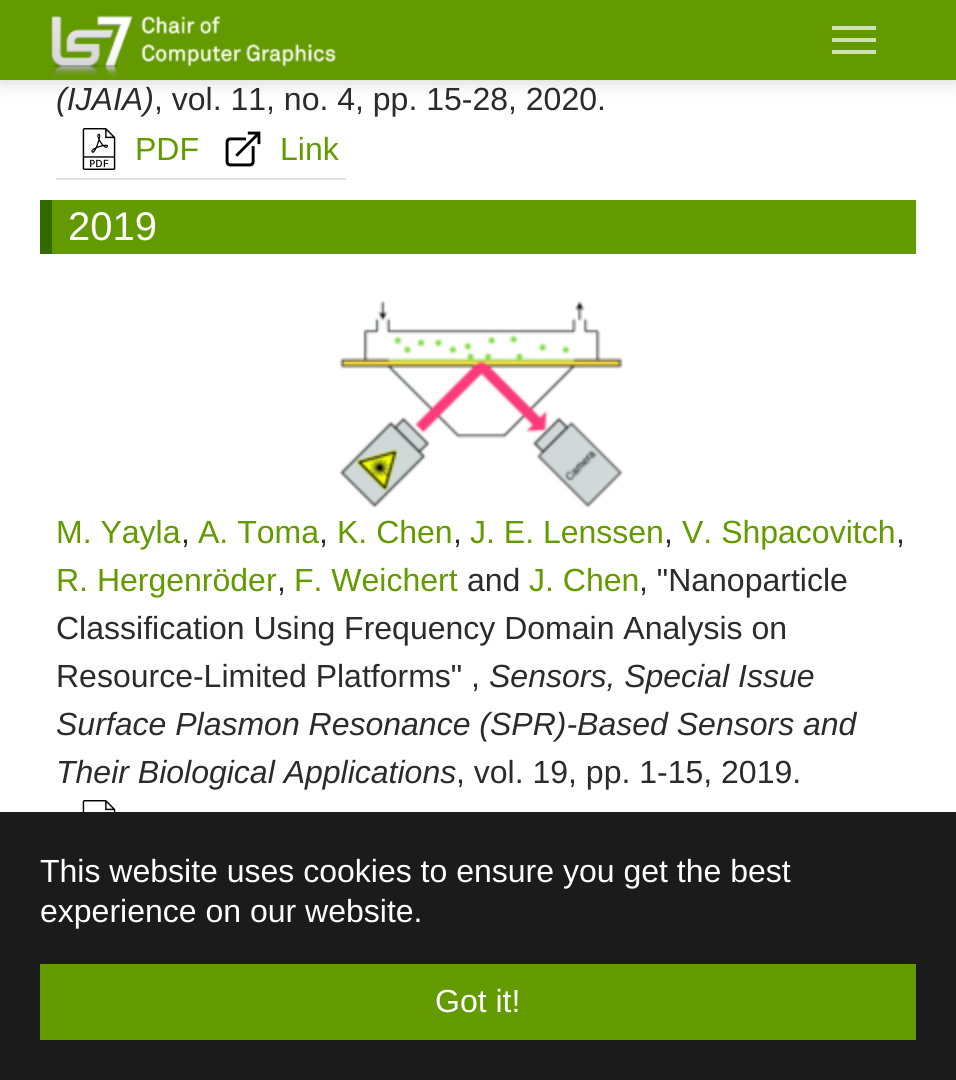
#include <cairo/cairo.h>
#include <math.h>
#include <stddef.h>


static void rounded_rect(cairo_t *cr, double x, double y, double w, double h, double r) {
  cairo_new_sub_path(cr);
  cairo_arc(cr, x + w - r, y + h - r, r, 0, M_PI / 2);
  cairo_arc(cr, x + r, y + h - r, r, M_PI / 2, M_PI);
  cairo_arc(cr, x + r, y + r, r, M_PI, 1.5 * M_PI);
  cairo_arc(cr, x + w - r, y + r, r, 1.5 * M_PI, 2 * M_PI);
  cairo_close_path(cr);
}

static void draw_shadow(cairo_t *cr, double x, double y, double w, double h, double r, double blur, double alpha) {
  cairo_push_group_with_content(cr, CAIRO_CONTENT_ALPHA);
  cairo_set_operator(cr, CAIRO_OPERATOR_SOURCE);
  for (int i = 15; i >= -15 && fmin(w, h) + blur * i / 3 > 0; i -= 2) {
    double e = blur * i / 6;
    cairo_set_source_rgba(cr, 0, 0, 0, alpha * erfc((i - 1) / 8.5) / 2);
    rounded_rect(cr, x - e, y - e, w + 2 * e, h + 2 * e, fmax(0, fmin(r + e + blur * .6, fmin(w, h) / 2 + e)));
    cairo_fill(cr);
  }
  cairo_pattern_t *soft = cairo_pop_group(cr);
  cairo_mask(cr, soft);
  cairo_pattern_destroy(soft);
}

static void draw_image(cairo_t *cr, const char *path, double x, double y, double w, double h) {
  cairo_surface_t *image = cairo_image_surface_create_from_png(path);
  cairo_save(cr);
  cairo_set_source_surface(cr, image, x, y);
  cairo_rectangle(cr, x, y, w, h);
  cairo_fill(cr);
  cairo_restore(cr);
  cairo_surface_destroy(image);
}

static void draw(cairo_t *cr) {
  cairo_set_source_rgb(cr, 1, 1, 1);
  cairo_paint(cr);
  cairo_set_source_rgb(cr, 0, 0, 0);
  draw_shadow(cr, 0, 0, 956, 80, 0, 10, 0.2);
  cairo_set_source_rgb(cr, 99 / 255.0, 154 / 255.0, 0);
  cairo_rectangle(cr, 0, 0, 956, 80);
  cairo_fill(cr);
  draw_image(cr, "images/1.png", 50, 15, 286, 63);
  cairo_set_source_rgb(cr, 208 / 255.0, 225 / 255.0, 179 / 255.0);
  cairo_rectangle(cr, 832, 38, 44, 4);
  cairo_fill(cr);
  cairo_rectangle(cr, 832, 26, 44, 4);
  cairo_fill(cr);
  cairo_rectangle(cr, 832, 50, 44, 4);
  cairo_fill(cr);
  draw_image(cr, "images/2.png", 82, 128, 34, 42);
  draw_image(cr, "images/3.png", 225, 131, 36, 36);
  cairo_set_source_rgb(cr, 222 / 255.0, 226 / 255.0, 230 / 255.0);
  cairo_rectangle(cr, 56, 178, 290, 2);
  cairo_fill(cr);
  cairo_set_source_rgb(cr, 99 / 255.0, 154 / 255.0, 0);
  cairo_rectangle(cr, 52, 200, 864, 54);
  cairo_fill(cr);
  cairo_set_source_rgb(cr, 51 / 255.0, 106 / 255.0, 0);
  cairo_rectangle(cr, 40, 200, 12, 54);
  cairo_fill(cr);
  draw_image(cr, "images/4.png", 339, 300, 284, 209);
  draw_image(cr, "images/5.png", 82, 800, 34, 12);
  cairo_set_source_rgb(cr, 27 / 255.0, 27 / 255.0, 27 / 255.0);
  cairo_rectangle(cr, 0, 812, 956, 268);
  cairo_fill(cr);
  cairo_set_source_rgb(cr, 99 / 255.0, 154 / 255.0, 0);
  cairo_rectangle(cr, 40, 964, 876, 76);
  cairo_fill(cr);
  cairo_select_font_face(cr, "Liberation Sans", CAIRO_FONT_SLANT_ITALIC, CAIRO_FONT_WEIGHT_NORMAL);
  cairo_set_font_size(cr, 32);
  cairo_set_source_rgb(cr, 43 / 255.0, 43 / 255.0, 43 / 255.0);
  cairo_move_to(cr, 56, 110);
  cairo_show_text(cr, "(IJAIA)");
  cairo_select_font_face(cr, "Liberation Sans", CAIRO_FONT_SLANT_NORMAL, CAIRO_FONT_WEIGHT_NORMAL);
  cairo_move_to(cr, 154, 110);
  cairo_show_text(cr, ", vol. 11, no. 4, pp. 15-28, 2020.");
  cairo_set_source_rgb(cr, 99 / 255.0, 154 / 255.0, 0);
  cairo_move_to(cr, 135, 160);
  cairo_show_text(cr, "PDF");
  cairo_move_to(cr, 280, 160);
  cairo_show_text(cr, "Link");
  cairo_set_font_size(cr, 40);
  cairo_set_source_rgb(cr, 1, 1, 1);
  cairo_move_to(cr, 68, 240);
  cairo_show_text(cr, "2019");
  cairo_set_font_size(cr, 32);
  cairo_set_source_rgb(cr, 99 / 255.0, 154 / 255.0, 0);
  cairo_move_to(cr, 56, 543);
  cairo_show_text(cr, "M. Yayla");
  cairo_set_source_rgb(cr, 43 / 255.0, 43 / 255.0, 43 / 255.0);
  cairo_move_to(cr, 181, 543);
  cairo_show_text(cr, ",");
  cairo_set_source_rgb(cr, 99 / 255.0, 154 / 255.0, 0);
  cairo_move_to(cr, 198, 543);
  cairo_show_text(cr, "A. Toma");
  cairo_set_source_rgb(cr, 43 / 255.0, 43 / 255.0, 43 / 255.0);
  cairo_move_to(cr, 319, 543);
  cairo_show_text(cr, ",");
  cairo_set_source_rgb(cr, 99 / 255.0, 154 / 255.0, 0);
  cairo_move_to(cr, 337, 543);
  cairo_show_text(cr, "K. Chen");
  cairo_set_source_rgb(cr, 43 / 255.0, 43 / 255.0, 43 / 255.0);
  cairo_move_to(cr, 453, 543);
  cairo_show_text(cr, ",");
  cairo_set_source_rgb(cr, 99 / 255.0, 154 / 255.0, 0);
  cairo_move_to(cr, 470, 543);
  cairo_show_text(cr, "J. E. Lenssen");
  cairo_set_source_rgb(cr, 43 / 255.0, 43 / 255.0, 43 / 255.0);
  cairo_move_to(cr, 664, 543);
  cairo_show_text(cr, ",");
  cairo_set_source_rgb(cr, 99 / 255.0, 154 / 255.0, 0);
  cairo_move_to(cr, 682, 543);
  cairo_show_text(cr, "V. Shpacovitch");
  cairo_set_source_rgb(cr, 43 / 255.0, 43 / 255.0, 43 / 255.0);
  cairo_move_to(cr, 896, 543);
  cairo_show_text(cr, ",");
  cairo_set_source_rgb(cr, 99 / 255.0, 154 / 255.0, 0);
  cairo_move_to(cr, 56, 591);
  cairo_show_text(cr, "R. Hergenröder");
  cairo_set_source_rgb(cr, 43 / 255.0, 43 / 255.0, 43 / 255.0);
  cairo_move_to(cr, 277, 591);
  cairo_show_text(cr, ",");
  cairo_set_source_rgb(cr, 99 / 255.0, 154 / 255.0, 0);
  cairo_move_to(cr, 294, 591);
  cairo_show_text(cr, "F. Weichert");
  cairo_set_source_rgb(cr, 43 / 255.0, 43 / 255.0, 43 / 255.0);
  cairo_move_to(cr, 467, 591);
  cairo_show_text(cr, "and");
  cairo_set_source_rgb(cr, 99 / 255.0, 154 / 255.0, 0);
  cairo_move_to(cr, 529, 591);
  cairo_show_text(cr, "J. Chen");
  cairo_set_source_rgb(cr, 43 / 255.0, 43 / 255.0, 43 / 255.0);
  cairo_move_to(cr, 639, 591);
  cairo_show_text(cr, ", \"Nanoparticle");
  cairo_move_to(cr, 56, 639);
  cairo_show_text(cr, "Classification Using Frequency Domain Analysis on");
  cairo_move_to(cr, 56, 687);
  cairo_show_text(cr, "Resource-Limited Platforms\" ,");
  cairo_select_font_face(cr, "Liberation Sans", CAIRO_FONT_SLANT_ITALIC, CAIRO_FONT_WEIGHT_NORMAL);
  cairo_move_to(cr, 489, 687);
  cairo_show_text(cr, "Sensors, Special Issue");
  cairo_move_to(cr, 56, 735);
  cairo_show_text(cr, "Surface Plasmon Resonance (SPR)-Based Sensors and");
  cairo_move_to(cr, 56, 783);
  cairo_show_text(cr, "Their Biological Applications");
  cairo_select_font_face(cr, "Liberation Sans", CAIRO_FONT_SLANT_NORMAL, CAIRO_FONT_WEIGHT_NORMAL);
  cairo_move_to(cr, 456, 783);
  cairo_show_text(cr, ", vol. 19, pp. 1-15, 2019.");
  cairo_set_source_rgb(cr, 1, 1, 1);
  cairo_move_to(cr, 40, 882);
  cairo_show_text(cr, "This website uses cookies to ensure you get the best");
  cairo_move_to(cr, 40, 922);
  cairo_show_text(cr, "experience on our website.");
  cairo_move_to(cr, 435, 1012);
  cairo_show_text(cr, "Got it!");
}

int main(void) {
  cairo_surface_t *surface = cairo_image_surface_create(CAIRO_FORMAT_RGB24, 956, 1080);
  cairo_t *cr = cairo_create(surface);
  cairo_font_options_t *options = cairo_font_options_create();
  cairo_font_options_set_hint_metrics(options, CAIRO_HINT_METRICS_OFF);
  cairo_font_options_set_hint_style(options, CAIRO_HINT_STYLE_NONE);
  cairo_set_font_options(cr, options);
  cairo_set_miter_limit(cr, 4);
  draw(cr);
  cairo_surface_write_to_png(surface, "out.png");
  cairo_font_options_destroy(options);
  cairo_destroy(cr);
  cairo_surface_destroy(surface);
  return 0;
}
